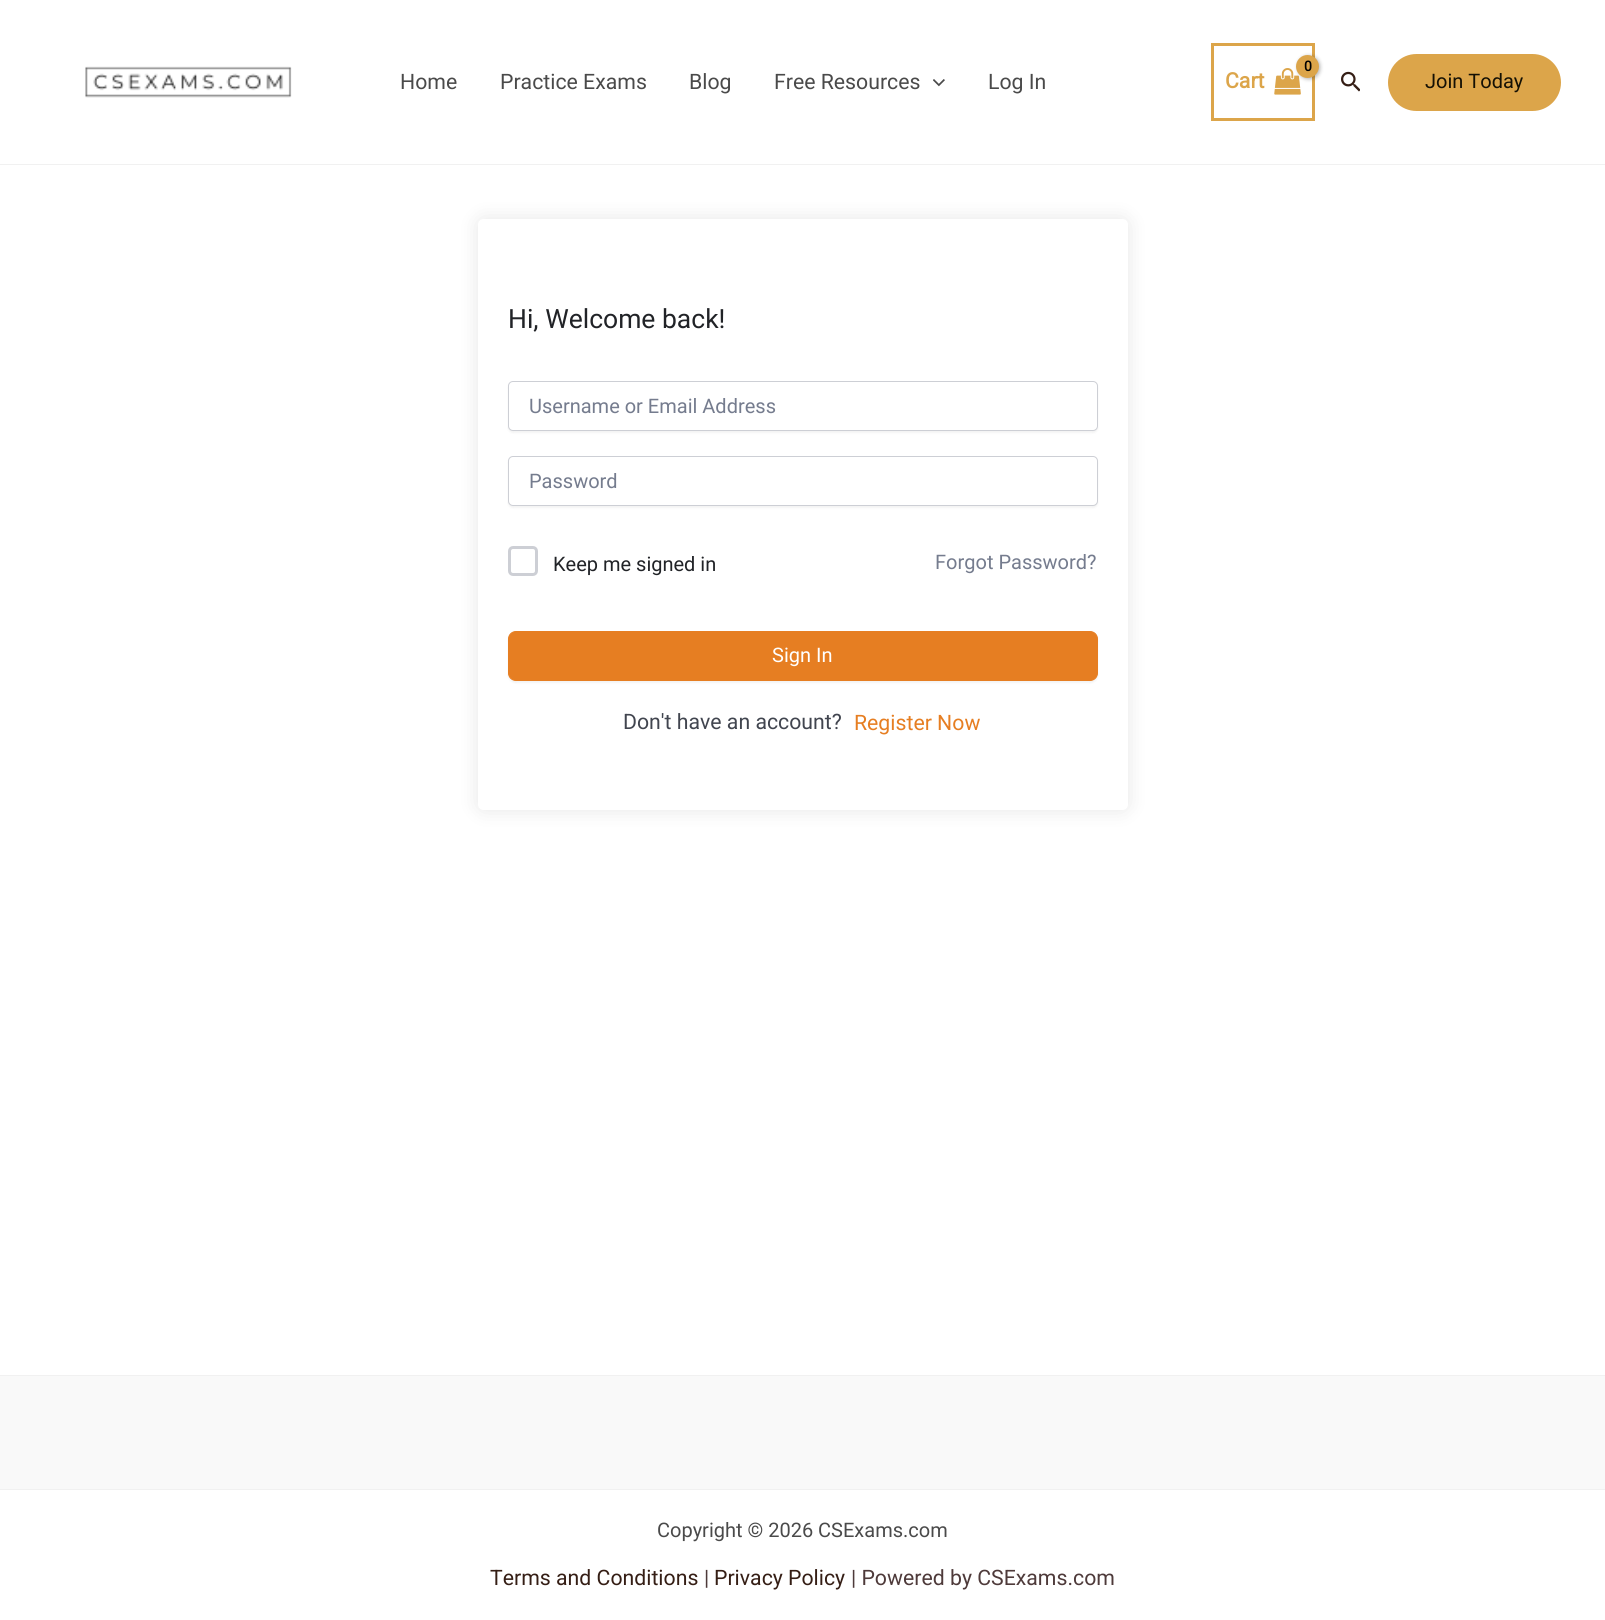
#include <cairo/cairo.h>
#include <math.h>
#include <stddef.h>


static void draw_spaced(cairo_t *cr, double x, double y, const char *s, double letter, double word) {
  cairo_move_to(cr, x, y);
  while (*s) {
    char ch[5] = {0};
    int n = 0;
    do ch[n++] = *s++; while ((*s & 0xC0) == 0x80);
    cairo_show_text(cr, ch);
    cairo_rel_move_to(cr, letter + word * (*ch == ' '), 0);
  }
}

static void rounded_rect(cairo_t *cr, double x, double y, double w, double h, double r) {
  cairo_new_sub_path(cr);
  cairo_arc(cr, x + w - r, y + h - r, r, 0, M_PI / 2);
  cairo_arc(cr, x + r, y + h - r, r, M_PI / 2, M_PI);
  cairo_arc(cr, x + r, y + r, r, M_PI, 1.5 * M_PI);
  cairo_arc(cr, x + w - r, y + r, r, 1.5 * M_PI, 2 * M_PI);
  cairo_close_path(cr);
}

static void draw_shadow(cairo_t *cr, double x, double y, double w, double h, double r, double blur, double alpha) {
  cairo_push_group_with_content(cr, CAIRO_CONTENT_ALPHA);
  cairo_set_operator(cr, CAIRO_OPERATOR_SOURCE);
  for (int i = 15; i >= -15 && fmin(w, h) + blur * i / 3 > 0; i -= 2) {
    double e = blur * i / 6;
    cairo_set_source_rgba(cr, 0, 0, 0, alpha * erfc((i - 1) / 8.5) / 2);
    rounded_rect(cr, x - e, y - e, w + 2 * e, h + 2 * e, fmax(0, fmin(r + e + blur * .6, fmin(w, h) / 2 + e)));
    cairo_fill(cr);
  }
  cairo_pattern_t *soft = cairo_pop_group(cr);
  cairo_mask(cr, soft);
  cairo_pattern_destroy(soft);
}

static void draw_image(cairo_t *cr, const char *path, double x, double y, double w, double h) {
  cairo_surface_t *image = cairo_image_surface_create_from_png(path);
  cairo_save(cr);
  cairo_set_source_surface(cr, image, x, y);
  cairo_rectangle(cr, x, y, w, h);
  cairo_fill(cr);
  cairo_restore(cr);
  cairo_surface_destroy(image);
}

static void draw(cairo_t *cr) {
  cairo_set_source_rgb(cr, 1, 1, 1);
  cairo_paint(cr);
  cairo_set_source_rgb(cr, 241 / 255.0, 241 / 255.0, 241 / 255.0);
  cairo_rectangle(cr, 0, 164, 1605, 1);
  cairo_fill(cr);
  draw_image(cr, "images/1.png", 85, 66, 207, 32);
  draw_image(cr, "images/2.png", 933, 79, 12, 8);
  cairo_rectangle(cr, 1212.5, 44.5, 101, 75);
  cairo_set_source_rgb(cr, 220 / 255.0, 165 / 255.0, 74 / 255.0);
  cairo_set_line_width(cr, 3);
  cairo_stroke(cr);
  draw_image(cr, "images/3.png", 1274, 68, 27, 27);
  cairo_set_source_rgb(cr, 0, 0, 0);
  draw_shadow(cr, 1298, 56, 22, 23, 11, 2, 0.3);
  cairo_set_source_rgb(cr, 220 / 255.0, 165 / 255.0, 74 / 255.0);
  cairo_arc(cr, 1307.5, 66.5, 11.5, 0, 2 * M_PI);
  cairo_fill(cr);
  draw_image(cr, "images/4.png", 1341, 71, 19, 21);
  rounded_rect(cr, 1388, 54, 173, 57, 28.5);
  cairo_fill(cr);
  cairo_save(cr);
  cairo_set_fill_rule(cr, CAIRO_FILL_RULE_EVEN_ODD);
  cairo_new_path(cr);
  cairo_move_to(cr, 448, 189);
  cairo_line_to(cr, 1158, 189);
  cairo_line_to(cr, 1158, 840);
  cairo_line_to(cr, 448, 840);
  cairo_close_path(cr);
  cairo_move_to(cr, 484, 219);
  cairo_line_to(cr, 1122, 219);
  cairo_curve_to(cr, 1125.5, 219, 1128, 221.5, 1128, 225);
  cairo_line_to(cr, 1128, 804);
  cairo_curve_to(cr, 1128, 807.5, 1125.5, 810, 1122, 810);
  cairo_line_to(cr, 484, 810);
  cairo_curve_to(cr, 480.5, 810, 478, 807.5, 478, 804);
  cairo_line_to(cr, 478, 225);
  cairo_curve_to(cr, 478, 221.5, 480.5, 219, 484, 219);
  cairo_close_path(cr);
  cairo_clip(cr);
  cairo_set_source_rgb(cr, 0, 0, 0);
  draw_shadow(cr, 478, 219, 650, 591, 6, 9.5, 0.1);
  cairo_restore(cr);
  cairo_set_source_rgb(cr, 0, 0, 0);
  draw_shadow(cr, 508, 383, 590, 50, 5, 1, 0.05);
  cairo_set_source_rgb(cr, 1, 1, 1);
  rounded_rect(cr, 508.5, 381.5, 589, 49, 4.5);
  cairo_fill_preserve(cr);
  cairo_set_source_rgb(cr, 205 / 255.0, 207 / 255.0, 213 / 255.0);
  cairo_set_line_width(cr, 1);
  cairo_stroke(cr);
  cairo_set_source_rgb(cr, 0, 0, 0);
  draw_shadow(cr, 508, 458, 590, 50, 5, 1, 0.05);
  cairo_set_source_rgb(cr, 1, 1, 1);
  rounded_rect(cr, 508.5, 456.5, 589, 49, 4.5);
  cairo_fill_preserve(cr);
  cairo_set_source_rgb(cr, 205 / 255.0, 207 / 255.0, 213 / 255.0);
  cairo_stroke(cr);
  rounded_rect(cr, 509.5, 547.5, 27, 27, 3.5);
  cairo_set_line_width(cr, 3);
  cairo_stroke(cr);
  cairo_set_source_rgb(cr, 0, 0, 0);
  draw_shadow(cr, 508, 633, 590, 50, 8, 1, 0.05);
  cairo_set_source_rgb(cr, 230 / 255.0, 126 / 255.0, 34 / 255.0);
  rounded_rect(cr, 508.5, 631.5, 589, 49, 7.5);
  cairo_fill_preserve(cr);
  cairo_set_line_width(cr, 1);
  cairo_stroke(cr);
  cairo_set_source_rgb(cr, 249 / 255.0, 249 / 255.0, 249 / 255.0);
  cairo_rectangle(cr, 0, 1376, 1605, 113);
  cairo_fill(cr);
  cairo_set_source_rgb(cr, 241 / 255.0, 241 / 255.0, 241 / 255.0);
  cairo_rectangle(cr, 0, 1375, 1605, 1);
  cairo_fill(cr);
  cairo_rectangle(cr, 0, 1489, 1605, 1);
  cairo_fill(cr);
  cairo_select_font_face(cr, "Roboto", CAIRO_FONT_SLANT_NORMAL, CAIRO_FONT_WEIGHT_NORMAL);
  cairo_set_font_size(cr, 21.25);
  cairo_set_source_rgb(cr, 74 / 255.0, 74 / 255.0, 74 / 255.0);
  cairo_move_to(cr, 400, 89);
  cairo_show_text(cr, "Home");
  cairo_move_to(cr, 500, 89);
  cairo_show_text(cr, "Practice Exams");
  cairo_move_to(cr, 689, 89);
  cairo_show_text(cr, "Blog");
  cairo_move_to(cr, 774, 89);
  cairo_show_text(cr, "Free Resources");
  cairo_move_to(cr, 988, 89);
  cairo_show_text(cr, "Log In");
  cairo_select_font_face(cr, "Roboto", CAIRO_FONT_SLANT_NORMAL, CAIRO_FONT_WEIGHT_BOLD);
  cairo_set_font_size(cr, 14);
  cairo_set_source_rgb(cr, 0, 0, 0);
  draw_spaced(cr, 1304, 71, "0", -1, 0);
  cairo_set_font_size(cr, 21.25);
  cairo_set_source_rgb(cr, 220 / 255.0, 165 / 255.0, 74 / 255.0);
  cairo_move_to(cr, 1225, 88);
  cairo_show_text(cr, "Cart");
  cairo_select_font_face(cr, "Roboto", CAIRO_FONT_SLANT_NORMAL, CAIRO_FONT_WEIGHT_NORMAL);
  cairo_set_font_size(cr, 20);
  cairo_set_source_rgb(cr, 20 / 255.0, 16 / 255.0, 4 / 255.0);
  cairo_move_to(cr, 1425, 88);
  cairo_show_text(cr, "Join Today");
  cairo_set_font_size(cr, 26.5);
  cairo_set_source_rgb(cr, 33 / 255.0, 35 / 255.0, 39 / 255.0);
  cairo_move_to(cr, 508, 328);
  cairo_show_text(cr, "Hi, Welcome back!");
  cairo_set_font_size(cr, 20);
  cairo_set_source_rgb(cr, 117 / 255.0, 124 / 255.0, 142 / 255.0);
  cairo_move_to(cr, 529, 413);
  cairo_show_text(cr, "Username or Email Address");
  cairo_move_to(cr, 529, 488);
  cairo_show_text(cr, "Password");
  cairo_set_source_rgb(cr, 33 / 255.0, 35 / 255.0, 39 / 255.0);
  cairo_move_to(cr, 553, 571);
  cairo_show_text(cr, "Keep me signed in");
  cairo_set_source_rgb(cr, 117 / 255.0, 124 / 255.0, 142 / 255.0);
  cairo_move_to(cr, 935, 569);
  cairo_show_text(cr, "Forgot Password?");
  cairo_set_source_rgb(cr, 1, 1, 1);
  cairo_move_to(cr, 772, 662);
  cairo_show_text(cr, "Sign In");
  cairo_set_font_size(cr, 21.25);
  cairo_set_source_rgb(cr, 65 / 255.0, 69 / 255.0, 79 / 255.0);
  cairo_move_to(cr, 623, 729);
  cairo_show_text(cr, "Don't have an account?");
  cairo_set_source_rgb(cr, 230 / 255.0, 126 / 255.0, 34 / 255.0);
  cairo_move_to(cr, 854, 730);
  cairo_show_text(cr, "Register Now");
  cairo_set_font_size(cr, 20);
  cairo_set_source_rgb(cr, 74 / 255.0, 74 / 255.0, 74 / 255.0);
  cairo_move_to(cr, 657, 1537);
  cairo_show_text(cr, "Copyright © 2026 CSExams.com");
  cairo_set_font_size(cr, 21.25);
  cairo_set_source_rgb(cr, 53 / 255.0, 30 / 255.0, 21 / 255.0);
  cairo_move_to(cr, 490, 1585);
  cairo_show_text(cr, "Terms and Conditions");
  cairo_set_source_rgb(cr, 78 / 255.0, 58 / 255.0, 58 / 255.0);
  cairo_move_to(cr, 704, 1585);
  cairo_show_text(cr, "|");
  cairo_set_source_rgb(cr, 53 / 255.0, 30 / 255.0, 21 / 255.0);
  cairo_move_to(cr, 714, 1585);
  cairo_show_text(cr, "Privacy Policy");
  cairo_set_source_rgb(cr, 78 / 255.0, 58 / 255.0, 58 / 255.0);
  cairo_move_to(cr, 851, 1585);
  cairo_show_text(cr, "| Powered by CSExams.com");
}

int main(void) {
  cairo_surface_t *surface = cairo_image_surface_create(CAIRO_FORMAT_RGB24, 1605, 1620);
  cairo_t *cr = cairo_create(surface);
  cairo_font_options_t *options = cairo_font_options_create();
  cairo_font_options_set_hint_metrics(options, CAIRO_HINT_METRICS_OFF);
  cairo_font_options_set_hint_style(options, CAIRO_HINT_STYLE_NONE);
  cairo_set_font_options(cr, options);
  cairo_set_miter_limit(cr, 4);
  draw(cr);
  cairo_surface_write_to_png(surface, "out.png");
  cairo_font_options_destroy(options);
  cairo_destroy(cr);
  cairo_surface_destroy(surface);
  return 0;
}
